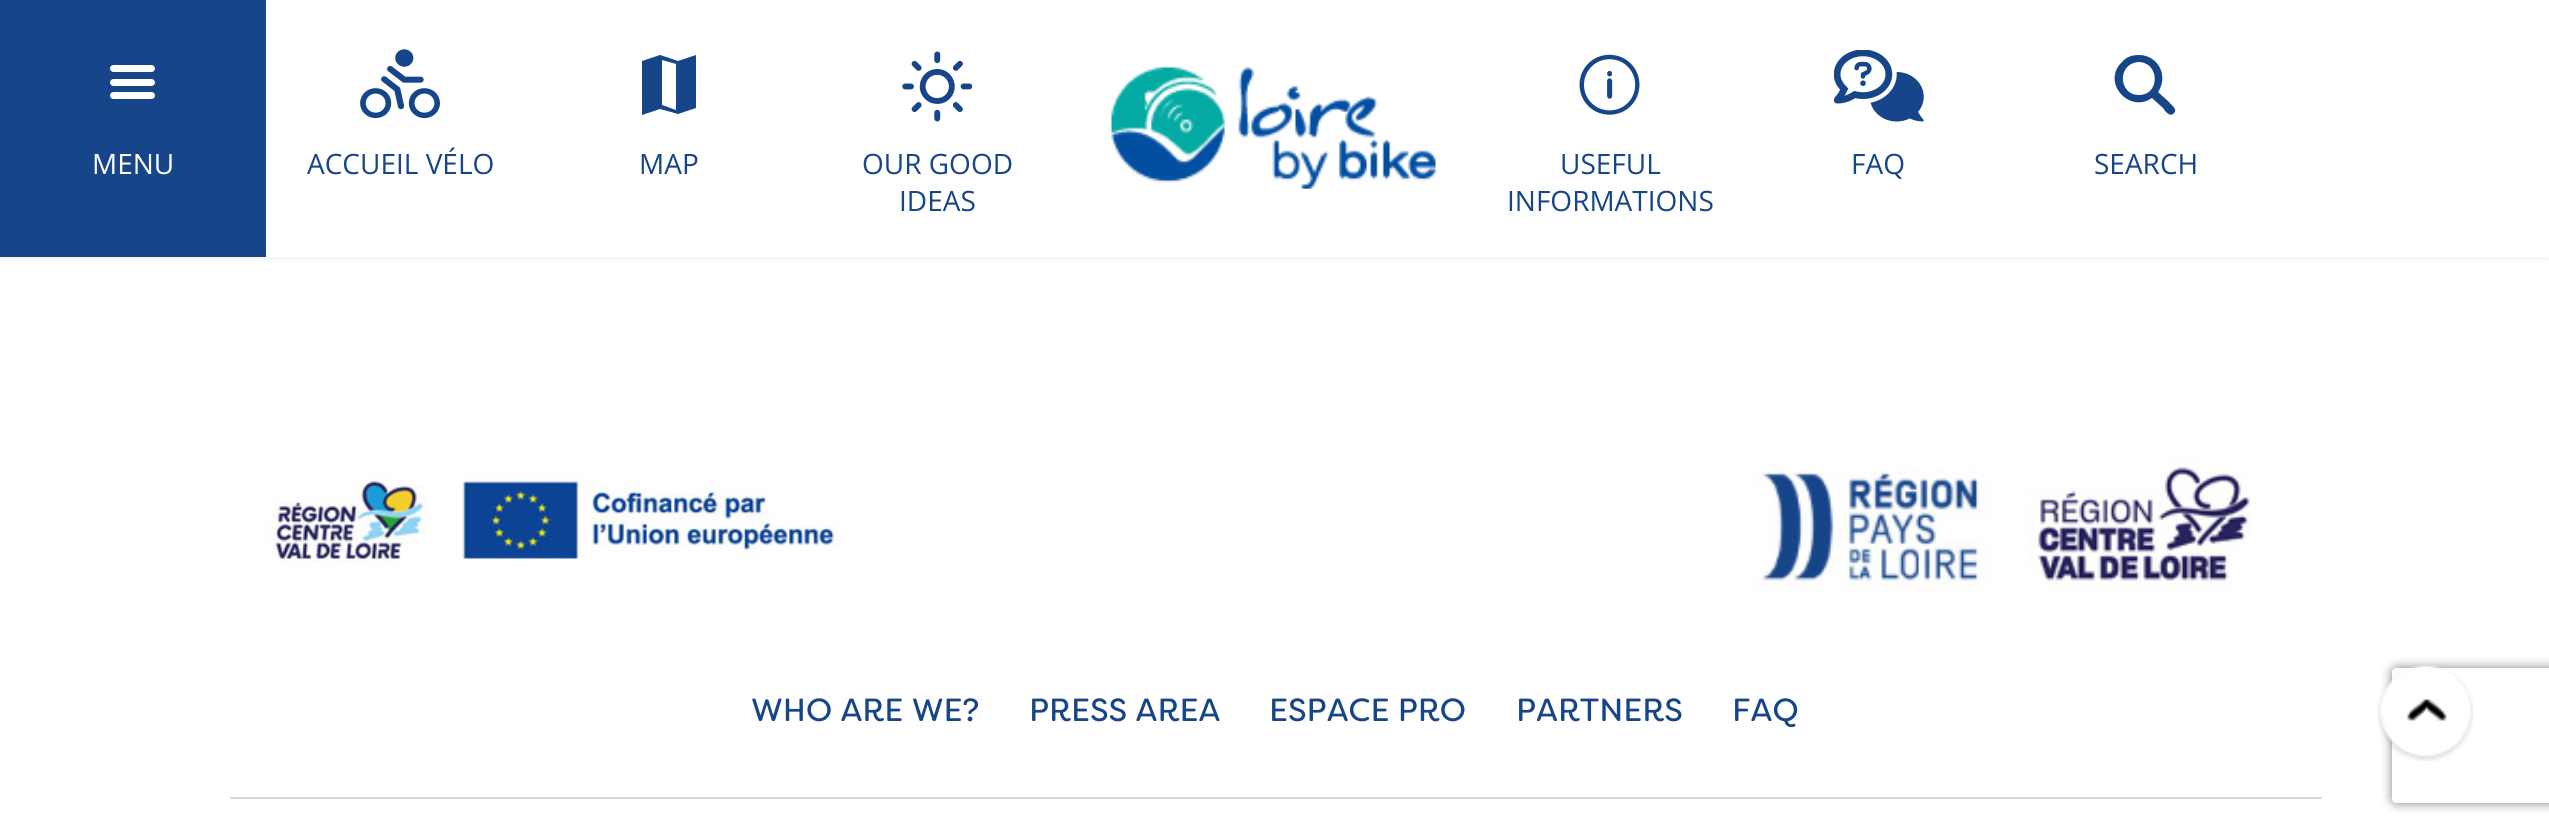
#include <cairo/cairo.h>
#include <math.h>
#include <stddef.h>


static void rounded_rect(cairo_t *cr, double x, double y, double w, double h, double r) {
  cairo_new_sub_path(cr);
  cairo_arc(cr, x + w - r, y + h - r, r, 0, M_PI / 2);
  cairo_arc(cr, x + r, y + h - r, r, M_PI / 2, M_PI);
  cairo_arc(cr, x + r, y + r, r, M_PI, 1.5 * M_PI);
  cairo_arc(cr, x + w - r, y + r, r, 1.5 * M_PI, 2 * M_PI);
  cairo_close_path(cr);
}

static void draw_shadow(cairo_t *cr, double x, double y, double w, double h, double r, double blur, double alpha) {
  cairo_push_group_with_content(cr, CAIRO_CONTENT_ALPHA);
  cairo_set_operator(cr, CAIRO_OPERATOR_SOURCE);
  for (int i = 15; i >= -15 && fmin(w, h) + blur * i / 3 > 0; i -= 2) {
    double e = blur * i / 6;
    cairo_set_source_rgba(cr, 0, 0, 0, alpha * erfc((i - 1) / 8.5) / 2);
    rounded_rect(cr, x - e, y - e, w + 2 * e, h + 2 * e, fmax(0, fmin(r + e + blur * .6, fmin(w, h) / 2 + e)));
    cairo_fill(cr);
  }
  cairo_pattern_t *soft = cairo_pop_group(cr);
  cairo_mask(cr, soft);
  cairo_pattern_destroy(soft);
}

static void draw_image(cairo_t *cr, const char *path, double x, double y, double w, double h) {
  cairo_surface_t *image = cairo_image_surface_create_from_png(path);
  cairo_save(cr);
  cairo_set_source_surface(cr, image, x, y);
  cairo_rectangle(cr, x, y, w, h);
  cairo_fill(cr);
  cairo_restore(cr);
  cairo_surface_destroy(image);
}

static void draw(cairo_t *cr) {
  cairo_set_source_rgb(cr, 1, 1, 1);
  cairo_paint(cr);
  cairo_set_source_rgb(cr, 0, 0, 0);
  draw_shadow(cr, 0, 2, 2549, 257, 0, 2, 0.05);
  cairo_set_source_rgb(cr, 1, 1, 1);
  cairo_rectangle(cr, 266, 0, 2283, 257);
  cairo_fill(cr);
  cairo_set_source_rgb(cr, 23 / 255.0, 69 / 255.0, 137 / 255.0);
  cairo_rectangle(cr, 0, 0, 266, 257);
  cairo_fill(cr);
  cairo_set_source_rgb(cr, 1, 1, 1);
  rounded_rect(cr, 110, 65, 45, 7, 3.5);
  cairo_fill(cr);
  rounded_rect(cr, 110, 79, 45, 7, 3.5);
  cairo_fill(cr);
  rounded_rect(cr, 110, 92, 45, 7, 3.5);
  cairo_fill(cr);
  draw_image(cr, "images/1.png", 360, 49, 81, 70);
  cairo_set_source_rgb(cr, 23 / 255.0, 69 / 255.0, 137 / 255.0);
  cairo_new_path(cr);
  cairo_move_to(cr, 696, 55);
  cairo_line_to(cr, 678, 61);
  cairo_line_to(cr, 660, 55);
  cairo_line_to(cr, 642, 61);
  cairo_line_to(cr, 642, 115);
  cairo_line_to(cr, 660, 109);
  cairo_line_to(cr, 678, 114);
  cairo_line_to(cr, 696, 108);
  cairo_close_path(cr);
  cairo_move_to(cr, 662, 60);
  cairo_line_to(cr, 676, 64);
  cairo_line_to(cr, 676, 110);
  cairo_line_to(cr, 662, 105);
  cairo_close_path(cr);
  cairo_fill(cr);
  draw_image(cr, "images/2.png", 902, 51, 71, 71);
  draw_image(cr, "images/3.png", 1111, 67, 325, 122);
  draw_image(cr, "images/4.png", 1579, 54, 61, 61);
  draw_image(cr, "images/5.png", 1834, 50, 90, 72);
  cairo_new_path(cr);
  cairo_move_to(cr, 2139, 55);
  cairo_curve_to(cr, 2132, 55, 2126, 57, 2122, 62);
  cairo_curve_to(cr, 2101, 82, 2129, 114, 2152, 98);
  cairo_line_to(cr, 2163, 108);
  cairo_curve_to(cr, 2165, 111, 2170, 118, 2174, 113);
  cairo_curve_to(cr, 2178, 109, 2171, 105, 2169, 102);
  cairo_line_to(cr, 2158, 92);
  cairo_curve_to(cr, 2169, 76, 2158, 55, 2139, 55);
  cairo_close_path(cr);
  cairo_move_to(cr, 2139, 62);
  cairo_curve_to(cr, 2160, 63, 2160, 95, 2139, 95);
  cairo_curve_to(cr, 2118, 95, 2117, 63, 2139, 62);
  cairo_close_path(cr);
  cairo_fill(cr);
  draw_image(cr, "images/6.png", 268, 472, 575, 91);
  draw_image(cr, "images/7.png", 1753, 453, 498, 138);
  cairo_set_source_rgb(cr, 217 / 255.0, 217 / 255.0, 217 / 255.0);
  cairo_rectangle(cr, 230, 797, 2092, 2);
  cairo_fill(cr);
  cairo_save(cr);
  cairo_set_fill_rule(cr, CAIRO_FILL_RULE_EVEN_ODD);
  cairo_new_path(cr);
  cairo_move_to(cr, 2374, 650);
  cairo_line_to(cr, 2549, 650);
  cairo_line_to(cr, 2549, 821);
  cairo_line_to(cr, 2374, 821);
  cairo_close_path(cr);
  cairo_move_to(cr, 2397, 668);
  cairo_line_to(cr, 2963, 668);
  cairo_curve_to(cr, 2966, 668, 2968, 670, 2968, 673);
  cairo_line_to(cr, 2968, 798);
  cairo_curve_to(cr, 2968, 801, 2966, 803, 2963, 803);
  cairo_line_to(cr, 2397, 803);
  cairo_curve_to(cr, 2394, 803, 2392, 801, 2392, 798);
  cairo_line_to(cr, 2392, 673);
  cairo_curve_to(cr, 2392, 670, 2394, 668, 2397, 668);
  cairo_close_path(cr);
  cairo_clip(cr);
  cairo_set_source_rgb(cr, 128 / 255.0, 128 / 255.0, 128 / 255.0);
  draw_shadow(cr, 2392, 668, 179, 135, 5, 5.5, 1);
  cairo_restore(cr);
  draw_image(cr, "images/8.png", 2377, 665, 97, 96);
  cairo_select_font_face(cr, "Open Sans", CAIRO_FONT_SLANT_NORMAL, CAIRO_FONT_WEIGHT_NORMAL);
  cairo_set_font_size(cr, 28);
  cairo_set_source_rgb(cr, 1, 1, 1);
  cairo_move_to(cr, 92, 174);
  cairo_show_text(cr, "MENU");
  cairo_set_source_rgb(cr, 23 / 255.0, 69 / 255.0, 137 / 255.0);
  cairo_move_to(cr, 307, 174);
  cairo_show_text(cr, "ACCUEIL VÉLO");
  cairo_move_to(cr, 639, 174);
  cairo_show_text(cr, "MAP");
  cairo_move_to(cr, 862, 174);
  cairo_show_text(cr, "OUR GOOD");
  cairo_move_to(cr, 899, 211);
  cairo_show_text(cr, "IDEAS");
  cairo_move_to(cr, 1560, 174);
  cairo_show_text(cr, "USEFUL");
  cairo_move_to(cr, 1507, 211);
  cairo_show_text(cr, "INFORMATIONS");
  cairo_move_to(cr, 1851, 174);
  cairo_show_text(cr, "FAQ");
  cairo_move_to(cr, 2094, 174);
  cairo_show_text(cr, "SEARCH");
  cairo_select_font_face(cr, "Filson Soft", CAIRO_FONT_SLANT_NORMAL, CAIRO_FONT_WEIGHT_NORMAL);
  cairo_set_font_size(cr, 32);
  cairo_move_to(cr, 751, 721);
  cairo_show_text(cr, "WHO ARE WE?");
  cairo_move_to(cr, 1029, 721);
  cairo_show_text(cr, "PRESS AREA");
  cairo_move_to(cr, 1269, 721);
  cairo_show_text(cr, "ESPACE PRO");
  cairo_move_to(cr, 1516, 721);
  cairo_show_text(cr, "PARTNERS");
  cairo_move_to(cr, 1732, 721);
  cairo_show_text(cr, "FAQ");
}

int main(void) {
  cairo_surface_t *surface = cairo_image_surface_create(CAIRO_FORMAT_RGB24, 2549, 833);
  cairo_t *cr = cairo_create(surface);
  cairo_font_options_t *options = cairo_font_options_create();
  cairo_font_options_set_hint_metrics(options, CAIRO_HINT_METRICS_OFF);
  cairo_font_options_set_hint_style(options, CAIRO_HINT_STYLE_NONE);
  cairo_set_font_options(cr, options);
  cairo_set_miter_limit(cr, 4);
  draw(cr);
  cairo_surface_write_to_png(surface, "out.png");
  cairo_font_options_destroy(options);
  cairo_destroy(cr);
  cairo_surface_destroy(surface);
  return 0;
}
